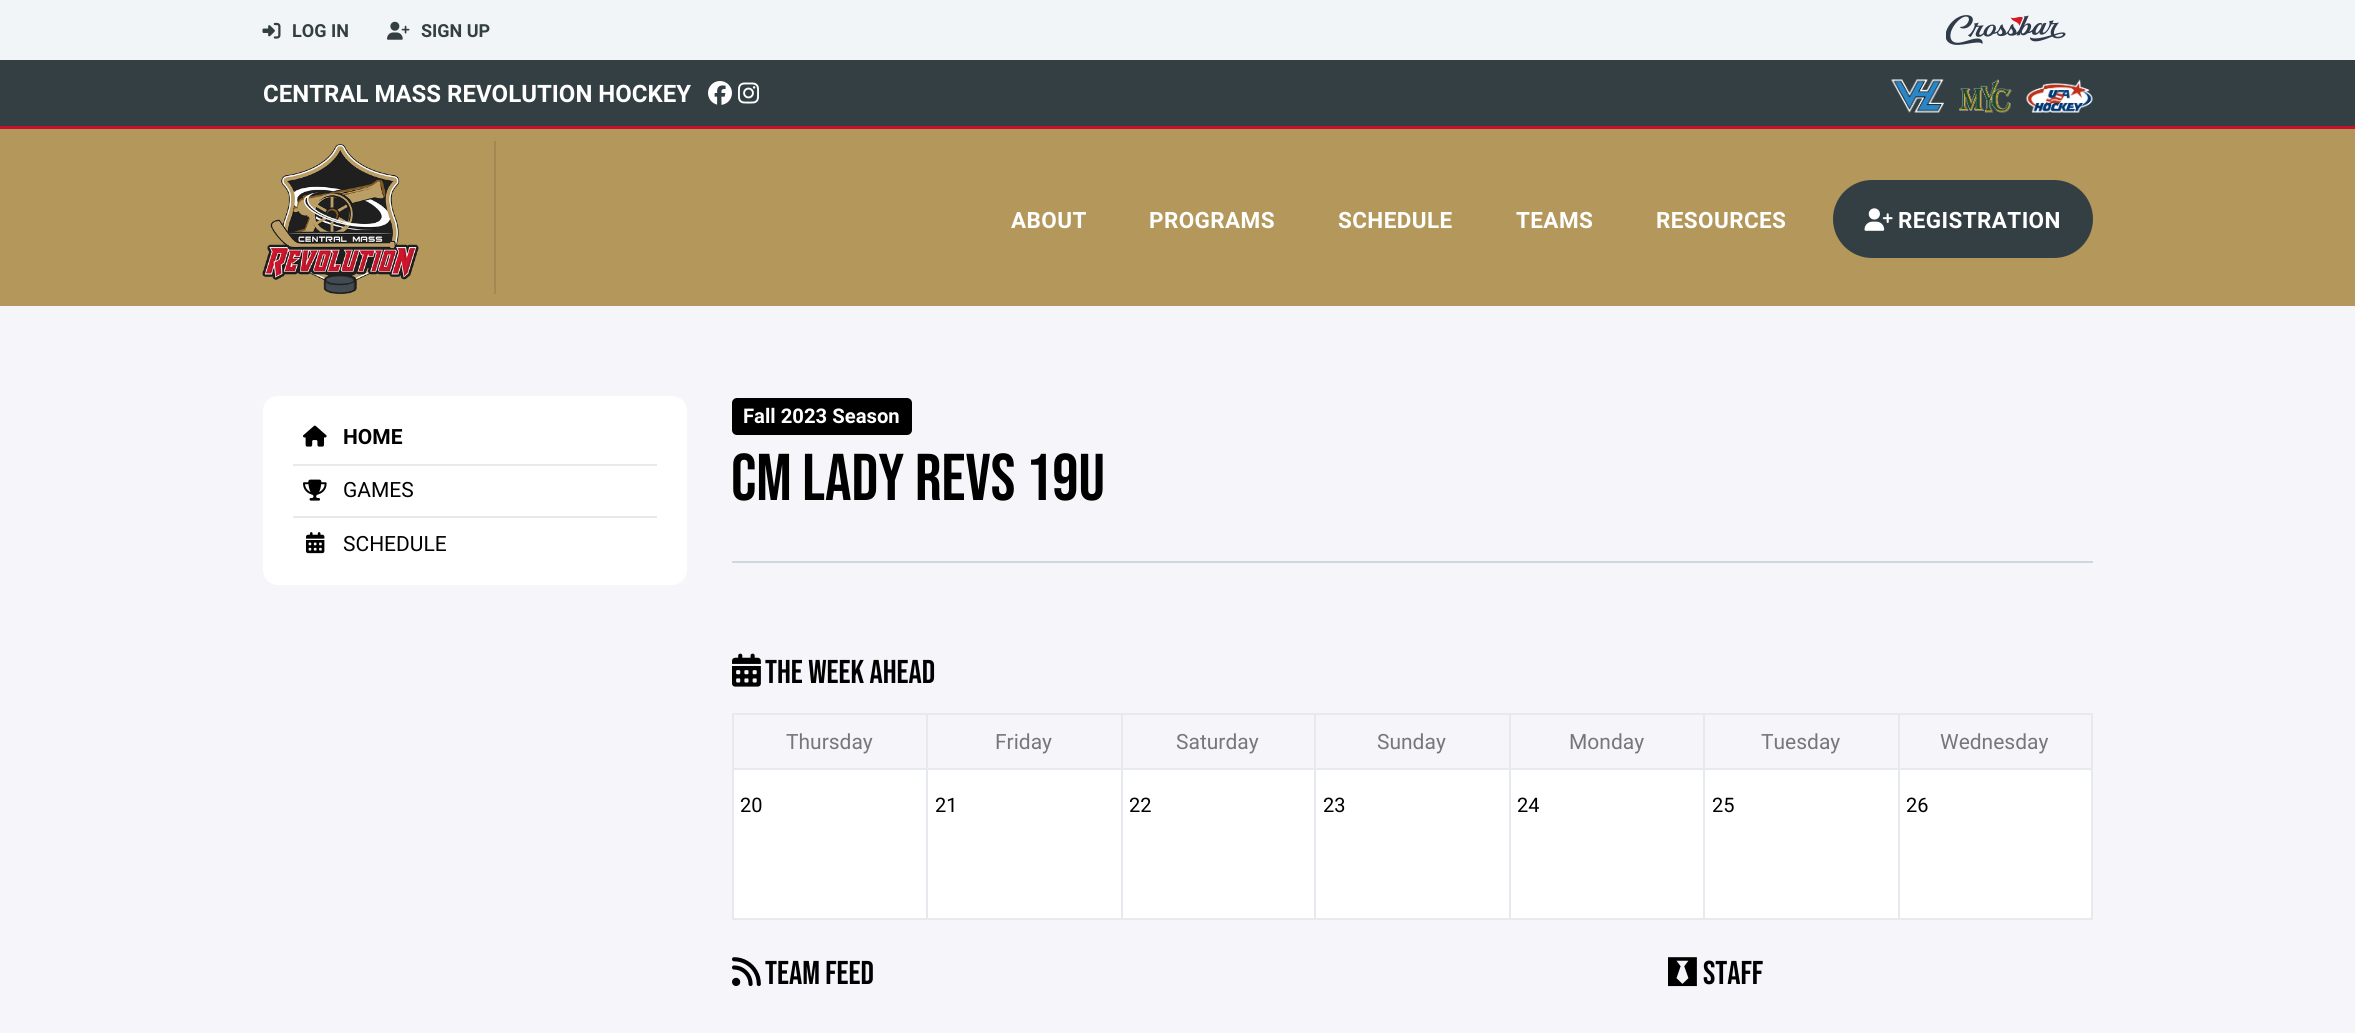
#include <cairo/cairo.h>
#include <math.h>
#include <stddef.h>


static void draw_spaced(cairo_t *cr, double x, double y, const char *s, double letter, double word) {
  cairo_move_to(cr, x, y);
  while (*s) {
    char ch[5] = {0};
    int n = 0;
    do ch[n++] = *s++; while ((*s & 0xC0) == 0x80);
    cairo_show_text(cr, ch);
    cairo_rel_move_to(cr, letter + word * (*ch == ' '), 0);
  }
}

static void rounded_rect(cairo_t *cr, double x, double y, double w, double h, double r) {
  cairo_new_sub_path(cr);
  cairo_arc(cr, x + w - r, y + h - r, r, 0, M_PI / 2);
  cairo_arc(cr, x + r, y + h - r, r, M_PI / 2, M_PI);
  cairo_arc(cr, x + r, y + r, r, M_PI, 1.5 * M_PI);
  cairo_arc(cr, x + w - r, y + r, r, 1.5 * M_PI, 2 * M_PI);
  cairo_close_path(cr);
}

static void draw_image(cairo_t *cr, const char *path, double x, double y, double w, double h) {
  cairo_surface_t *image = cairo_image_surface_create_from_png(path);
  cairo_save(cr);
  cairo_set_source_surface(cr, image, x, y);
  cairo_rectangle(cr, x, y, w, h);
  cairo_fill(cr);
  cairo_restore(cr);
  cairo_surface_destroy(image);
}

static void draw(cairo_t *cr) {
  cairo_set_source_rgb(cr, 242 / 255.0, 245 / 255.0, 247 / 255.0);
  cairo_paint(cr);
  draw_image(cr, "images/1.png", 262, 22, 19, 17);
  draw_image(cr, "images/2.png", 387, 21, 23, 19);
  draw_image(cr, "images/3.png", 1946, 15, 120, 30);
  cairo_set_source_rgb(cr, 51 / 255.0, 63 / 255.0, 66 / 255.0);
  cairo_rectangle(cr, 0, 60, 2355, 66);
  cairo_fill(cr);
  draw_image(cr, "images/4.png", 708, 81, 24, 24);
  draw_image(cr, "images/5.png", 738, 82, 21, 22);
  draw_image(cr, "images/6.png", 1891, 79, 53, 34);
  draw_image(cr, "images/7.png", 1959, 79, 53, 34);
  draw_image(cr, "images/8.png", 2026, 79, 67, 34);
  cairo_set_source_rgb(cr, 180 / 255.0, 151 / 255.0, 90 / 255.0);
  cairo_rectangle(cr, 0, 129, 2355, 177);
  cairo_fill(cr);
  cairo_set_source_rgb(cr, 200 / 255.0, 16 / 255.0, 46 / 255.0);
  cairo_rectangle(cr, 0, 126, 2355, 3);
  cairo_fill(cr);
  cairo_set_source_rgb(cr, 162 / 255.0, 136 / 255.0, 81 / 255.0);
  cairo_rectangle(cr, 494, 141, 2, 153);
  cairo_fill(cr);
  draw_image(cr, "images/9.png", 262, 144, 157, 150);
  cairo_set_source_rgb(cr, 51 / 255.0, 63 / 255.0, 66 / 255.0);
  rounded_rect(cr, 1833, 180, 260, 78, 39);
  cairo_fill(cr);
  draw_image(cr, "images/10.png", 1864, 208, 29, 23);
  cairo_set_source_rgb(cr, 246 / 255.0, 245 / 255.0, 250 / 255.0);
  cairo_rectangle(cr, 0, 306, 2355, 727);
  cairo_fill(cr);
  cairo_set_source_rgb(cr, 1, 1, 1);
  rounded_rect(cr, 263, 396, 424, 189, 15);
  cairo_fill(cr);
  draw_image(cr, "images/11.png", 303, 425, 24, 22);
  cairo_set_source_rgb(cr, 231 / 255.0, 233 / 255.0, 237 / 255.0);
  cairo_rectangle(cr, 293, 464, 364, 2);
  cairo_fill(cr);
  draw_image(cr, "images/12.png", 303, 479, 24, 22);
  cairo_rectangle(cr, 293, 516, 364, 2);
  cairo_fill(cr);
  draw_image(cr, "images/13.png", 306, 532, 19, 22);
  cairo_set_source_rgb(cr, 0, 0, 0);
  rounded_rect(cr, 732, 398, 180, 37, 5);
  cairo_fill(cr);
  cairo_set_source_rgb(cr, 206 / 255.0, 215 / 255.0, 224 / 255.0);
  cairo_rectangle(cr, 732, 561, 1361, 2);
  cairo_fill(cr);
  draw_image(cr, "images/14.png", 732, 653, 29, 34);
  cairo_set_source_rgb(cr, 1, 1, 1);
  cairo_rectangle(cr, 734, 770, 1357, 148);
  cairo_fill(cr);
  cairo_set_source_rgb(cr, 230 / 255.0, 233 / 255.0, 237 / 255.0);
  cairo_rectangle(cr, 732, 713, 1361, 2);
  cairo_fill(cr);
  cairo_rectangle(cr, 2091, 713, 2, 207);
  cairo_fill(cr);
  cairo_rectangle(cr, 732, 918, 1361, 2);
  cairo_fill(cr);
  cairo_rectangle(cr, 1898, 768, 195, 2);
  cairo_fill(cr);
  cairo_rectangle(cr, 1898, 768, 2, 152);
  cairo_fill(cr);
  cairo_rectangle(cr, 1703, 768, 196, 2);
  cairo_fill(cr);
  cairo_rectangle(cr, 1703, 768, 2, 152);
  cairo_fill(cr);
  cairo_rectangle(cr, 1509, 768, 195, 2);
  cairo_fill(cr);
  cairo_rectangle(cr, 1509, 768, 2, 152);
  cairo_fill(cr);
  cairo_rectangle(cr, 1314, 768, 197, 2);
  cairo_fill(cr);
  cairo_rectangle(cr, 1314, 768, 2, 152);
  cairo_fill(cr);
  cairo_rectangle(cr, 1121, 768, 195, 2);
  cairo_fill(cr);
  cairo_rectangle(cr, 1121, 768, 2, 152);
  cairo_fill(cr);
  cairo_rectangle(cr, 926, 768, 196, 2);
  cairo_fill(cr);
  cairo_rectangle(cr, 926, 768, 2, 152);
  cairo_fill(cr);
  cairo_rectangle(cr, 732, 768, 195, 2);
  cairo_fill(cr);
  cairo_rectangle(cr, 926, 713, 2, 57);
  cairo_fill(cr);
  cairo_rectangle(cr, 1121, 713, 2, 57);
  cairo_fill(cr);
  cairo_rectangle(cr, 1314, 713, 2, 57);
  cairo_fill(cr);
  cairo_rectangle(cr, 1509, 713, 2, 57);
  cairo_fill(cr);
  cairo_rectangle(cr, 1703, 713, 2, 57);
  cairo_fill(cr);
  cairo_rectangle(cr, 1898, 713, 2, 57);
  cairo_fill(cr);
  cairo_rectangle(cr, 732, 713, 2, 207);
  cairo_fill(cr);
  draw_image(cr, "images/15.png", 732, 957, 29, 30);
  draw_image(cr, "images/16.png", 1668, 957, 29, 30);
  cairo_select_font_face(cr, "Roboto", CAIRO_FONT_SLANT_NORMAL, CAIRO_FONT_WEIGHT_BOLD);
  cairo_set_font_size(cr, 18);
  cairo_set_source_rgb(cr, 51 / 255.0, 63 / 255.0, 66 / 255.0);
  cairo_move_to(cr, 292, 37);
  cairo_show_text(cr, "LOG IN");
  cairo_move_to(cr, 421, 37);
  cairo_show_text(cr, "SIGN UP");
  cairo_set_font_size(cr, 24);
  cairo_set_source_rgb(cr, 1, 1, 1);
  cairo_move_to(cr, 263, 102);
  cairo_show_text(cr, "CENTRAL MASS REVOLUTION HOCKEY");
  cairo_set_font_size(cr, 22.5);
  draw_spaced(cr, 1011, 228, "ABOUT", 0.4, 0);
  draw_spaced(cr, 1149, 228, "PROGRAMS", 0.4, 0);
  draw_spaced(cr, 1338, 228, "SCHEDULE", 0.4, 0);
  draw_spaced(cr, 1516, 228, "TEAMS", 0.4, 0);
  draw_spaced(cr, 1656, 228, "RESOURCES", 0.4, 0);
  draw_spaced(cr, 1898, 228, "REGISTRATION", 0.4, 0);
  cairo_set_font_size(cr, 21);
  cairo_set_source_rgb(cr, 0, 0, 0);
  cairo_move_to(cr, 343, 444);
  cairo_show_text(cr, "HOME");
  cairo_select_font_face(cr, "Roboto", CAIRO_FONT_SLANT_NORMAL, CAIRO_FONT_WEIGHT_NORMAL);
  cairo_move_to(cr, 343, 497);
  cairo_show_text(cr, "GAMES");
  cairo_move_to(cr, 343, 551);
  cairo_show_text(cr, "SCHEDULE");
  cairo_select_font_face(cr, "Roboto", CAIRO_FONT_SLANT_NORMAL, CAIRO_FONT_WEIGHT_BOLD);
  cairo_set_font_size(cr, 20.25);
  cairo_set_source_rgb(cr, 1, 1, 1);
  cairo_move_to(cr, 743, 423);
  cairo_show_text(cr, "Fall 2023 Season");
  cairo_select_font_face(cr, "Bebas Neue", CAIRO_FONT_SLANT_NORMAL, CAIRO_FONT_WEIGHT_NORMAL);
  cairo_set_font_size(cr, 66);
  cairo_set_source_rgb(cr, 0, 0, 0);
  cairo_move_to(cr, 731, 500);
  cairo_show_text(cr, "CM LADY REVS 19U");
  cairo_set_font_size(cr, 33);
  cairo_move_to(cr, 765, 683);
  cairo_show_text(cr, "THE WEEK AHEAD");
  cairo_select_font_face(cr, "Roboto", CAIRO_FONT_SLANT_NORMAL, CAIRO_FONT_WEIGHT_NORMAL);
  cairo_set_font_size(cr, 21);
  cairo_set_source_rgb(cr, 119 / 255.0, 119 / 255.0, 119 / 255.0);
  cairo_move_to(cr, 786, 749);
  cairo_show_text(cr, "Thursday");
  cairo_move_to(cr, 995, 749);
  cairo_show_text(cr, "Friday");
  cairo_move_to(cr, 1176, 749);
  cairo_show_text(cr, "Saturday");
  cairo_move_to(cr, 1377, 749);
  cairo_show_text(cr, "Sunday");
  cairo_move_to(cr, 1569, 749);
  cairo_show_text(cr, "Monday");
  cairo_move_to(cr, 1761, 749);
  cairo_show_text(cr, "Tuesday");
  cairo_move_to(cr, 1940, 749);
  cairo_show_text(cr, "Wednesday");
  cairo_set_font_size(cr, 20);
  cairo_set_source_rgb(cr, 0, 0, 0);
  cairo_move_to(cr, 740, 812);
  cairo_show_text(cr, "20");
  cairo_move_to(cr, 935, 812);
  cairo_show_text(cr, "21");
  cairo_move_to(cr, 1129, 812);
  cairo_show_text(cr, "22");
  cairo_move_to(cr, 1323, 812);
  cairo_show_text(cr, "23");
  cairo_move_to(cr, 1517, 812);
  cairo_show_text(cr, "24");
  cairo_move_to(cr, 1712, 812);
  cairo_show_text(cr, "25");
  cairo_move_to(cr, 1906, 812);
  cairo_show_text(cr, "26");
  cairo_select_font_face(cr, "Bebas Neue", CAIRO_FONT_SLANT_NORMAL, CAIRO_FONT_WEIGHT_NORMAL);
  cairo_set_font_size(cr, 33);
  cairo_move_to(cr, 765, 984);
  cairo_show_text(cr, "TEAM FEED");
  cairo_move_to(cr, 1703, 984);
  cairo_show_text(cr, "STAFF");
}

int main(void) {
  cairo_surface_t *surface = cairo_image_surface_create(CAIRO_FORMAT_RGB24, 2355, 1033);
  cairo_t *cr = cairo_create(surface);
  cairo_font_options_t *options = cairo_font_options_create();
  cairo_font_options_set_hint_metrics(options, CAIRO_HINT_METRICS_OFF);
  cairo_font_options_set_hint_style(options, CAIRO_HINT_STYLE_NONE);
  cairo_set_font_options(cr, options);
  cairo_set_miter_limit(cr, 4);
  draw(cr);
  cairo_surface_write_to_png(surface, "out.png");
  cairo_font_options_destroy(options);
  cairo_destroy(cr);
  cairo_surface_destroy(surface);
  return 0;
}
